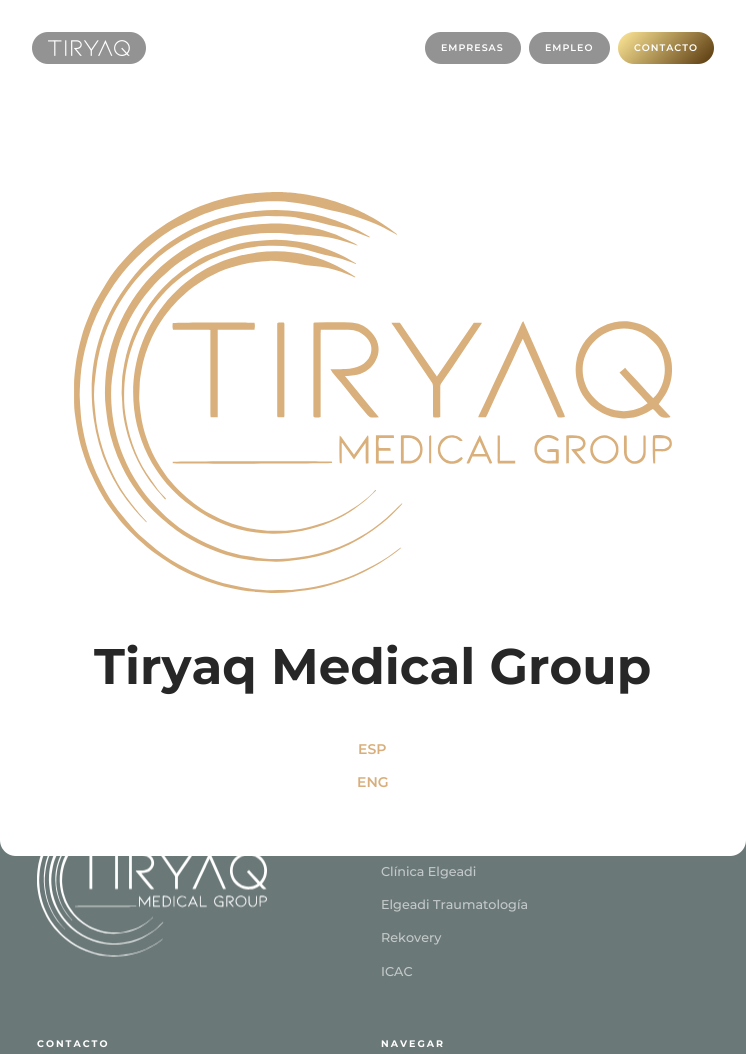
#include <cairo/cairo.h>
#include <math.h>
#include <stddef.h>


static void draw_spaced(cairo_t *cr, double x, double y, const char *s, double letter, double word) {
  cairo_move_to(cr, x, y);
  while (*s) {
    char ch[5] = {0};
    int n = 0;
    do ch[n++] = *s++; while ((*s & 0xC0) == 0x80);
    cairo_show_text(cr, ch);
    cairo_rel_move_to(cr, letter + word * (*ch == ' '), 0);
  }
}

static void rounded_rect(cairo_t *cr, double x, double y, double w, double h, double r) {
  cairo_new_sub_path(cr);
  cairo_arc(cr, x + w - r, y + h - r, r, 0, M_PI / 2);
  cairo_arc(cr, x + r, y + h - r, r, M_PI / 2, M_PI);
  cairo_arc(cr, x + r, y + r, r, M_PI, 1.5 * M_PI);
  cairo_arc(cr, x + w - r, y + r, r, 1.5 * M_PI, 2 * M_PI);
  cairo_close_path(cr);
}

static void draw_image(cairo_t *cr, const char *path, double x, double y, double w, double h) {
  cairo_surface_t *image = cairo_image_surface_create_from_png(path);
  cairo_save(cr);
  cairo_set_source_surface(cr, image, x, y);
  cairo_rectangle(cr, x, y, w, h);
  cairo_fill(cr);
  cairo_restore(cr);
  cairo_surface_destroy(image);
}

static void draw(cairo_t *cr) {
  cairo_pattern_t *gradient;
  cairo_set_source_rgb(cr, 1, 1, 1);
  cairo_paint(cr);
  cairo_set_source_rgb(cr, 147 / 255.0, 147 / 255.0, 147 / 255.0);
  rounded_rect(cr, 32, 32, 114, 32, 16);
  cairo_fill(cr);
  draw_image(cr, "images/1.png", 48, 40, 82, 16);
  rounded_rect(cr, 425, 32, 96, 32, 16);
  cairo_fill(cr);
  rounded_rect(cr, 529, 32, 81, 32, 16);
  cairo_fill(cr);
  gradient = cairo_pattern_create_linear(634, 16, 698, 80);
  cairo_pattern_add_color_stop_rgba(gradient, 0, 1, 233 / 255.0, 152 / 255.0, 1);
  cairo_pattern_add_color_stop_rgba(gradient, 1, 87 / 255.0, 55 / 255.0, 13 / 255.0, 1);
  cairo_set_source(cr, gradient);
  cairo_pattern_destroy(gradient);
  rounded_rect(cr, 618, 32, 96, 32, 16);
  cairo_fill(cr);
  cairo_set_source_rgb(cr, 107 / 255.0, 120 / 255.0, 120 / 255.0);
  cairo_rectangle(cr, 0, 840, 746, 214);
  cairo_fill(cr);
  cairo_set_source_rgb(cr, 1, 1, 1);
  cairo_new_path(cr);
  cairo_move_to(cr, 0, 128);
  cairo_line_to(cr, 746, 128);
  cairo_line_to(cr, 746, 840);
  cairo_curve_to(cr, 746, 849, 739, 856, 730, 856);
  cairo_line_to(cr, 16, 856);
  cairo_curve_to(cr, 7, 856, 0, 849, 0, 840);
  cairo_close_path(cr);
  cairo_fill(cr);
  draw_image(cr, "images/2.png", 74, 192, 598, 401);
  draw_image(cr, "images/3.png", 37, 856, 230, 101);
  cairo_select_font_face(cr, "Montserrat SemiBold", CAIRO_FONT_SLANT_NORMAL, CAIRO_FONT_WEIGHT_NORMAL);
  cairo_set_font_size(cr, 9.5);
  draw_spaced(cr, 441, 51, "EMPRESAS", 1, 0);
  draw_spaced(cr, 545, 51, "EMPLEO", 1, 0);
  draw_spaced(cr, 634, 51, "CONTACTO", 1, 0);
  cairo_select_font_face(cr, "Montserrat", CAIRO_FONT_SLANT_NORMAL, CAIRO_FONT_WEIGHT_BOLD);
  cairo_set_font_size(cr, 50);
  cairo_set_source_rgb(cr, 39 / 255.0, 39 / 255.0, 39 / 255.0);
  cairo_move_to(cr, 94, 684);
  cairo_show_text(cr, "Tiryaq Medical Group");
  cairo_select_font_face(cr, "Montserrat SemiBold", CAIRO_FONT_SLANT_NORMAL, CAIRO_FONT_WEIGHT_NORMAL);
  cairo_set_font_size(cr, 14);
  cairo_set_source_rgb(cr, 216 / 255.0, 175 / 255.0, 124 / 255.0);
  cairo_move_to(cr, 358, 754);
  cairo_show_text(cr, "ESP");
  cairo_move_to(cr, 357, 787);
  cairo_show_text(cr, "ENG");
  cairo_select_font_face(cr, "Montserrat Medium", CAIRO_FONT_SLANT_NORMAL, CAIRO_FONT_WEIGHT_NORMAL);
  cairo_set_font_size(cr, 12.75);
  cairo_set_source_rgb(cr, 196 / 255.0, 201 / 255.0, 201 / 255.0);
  cairo_move_to(cr, 381, 876);
  cairo_show_text(cr, "Clínica Elgeadi");
  cairo_move_to(cr, 381, 909);
  cairo_show_text(cr, "Elgeadi Traumatología");
  cairo_move_to(cr, 381, 942);
  cairo_show_text(cr, "Rekovery");
  cairo_move_to(cr, 381, 976);
  cairo_show_text(cr, "ICAC");
  cairo_select_font_face(cr, "Montserrat", CAIRO_FONT_SLANT_NORMAL, CAIRO_FONT_WEIGHT_BOLD);
  cairo_set_font_size(cr, 9.5);
  cairo_set_source_rgb(cr, 1, 1, 1);
  draw_spaced(cr, 37, 1047, "CONTACTO", 2, 0);
  draw_spaced(cr, 381, 1047, "NAVEGAR", 2, 0);
}

int main(void) {
  cairo_surface_t *surface = cairo_image_surface_create(CAIRO_FORMAT_RGB24, 746, 1054);
  cairo_t *cr = cairo_create(surface);
  cairo_font_options_t *options = cairo_font_options_create();
  cairo_font_options_set_hint_metrics(options, CAIRO_HINT_METRICS_OFF);
  cairo_font_options_set_hint_style(options, CAIRO_HINT_STYLE_NONE);
  cairo_set_font_options(cr, options);
  cairo_set_miter_limit(cr, 4);
  draw(cr);
  cairo_surface_write_to_png(surface, "out.png");
  cairo_font_options_destroy(options);
  cairo_destroy(cr);
  cairo_surface_destroy(surface);
  return 0;
}
